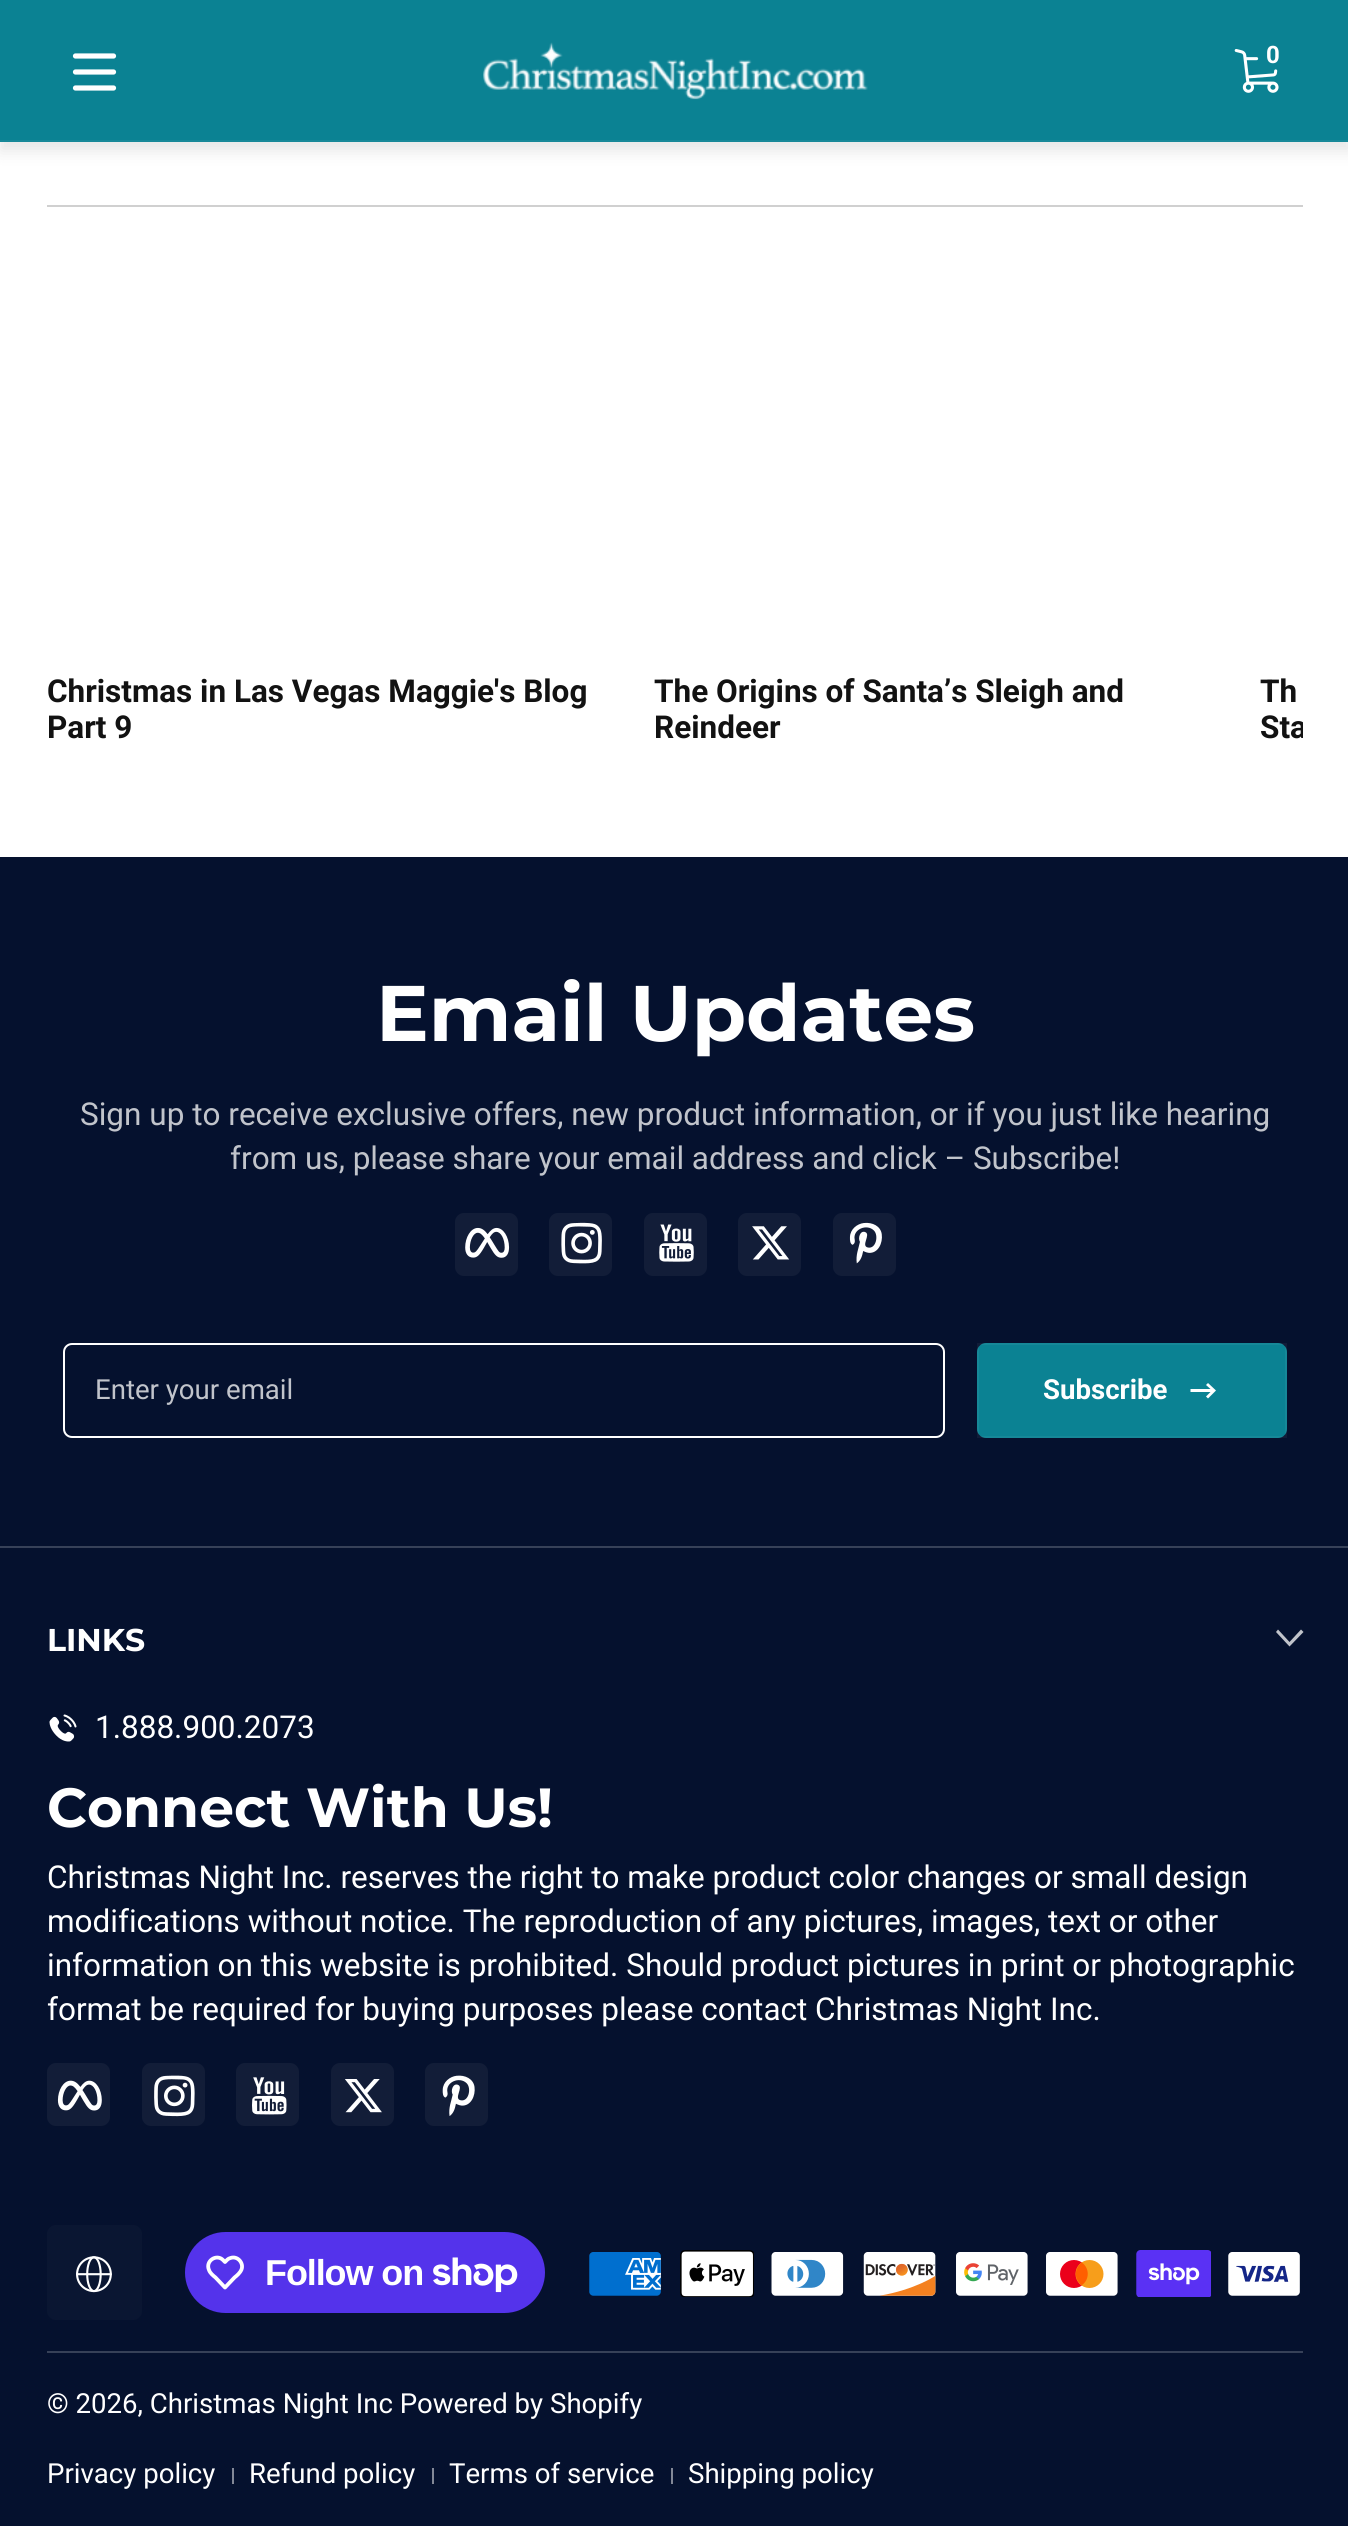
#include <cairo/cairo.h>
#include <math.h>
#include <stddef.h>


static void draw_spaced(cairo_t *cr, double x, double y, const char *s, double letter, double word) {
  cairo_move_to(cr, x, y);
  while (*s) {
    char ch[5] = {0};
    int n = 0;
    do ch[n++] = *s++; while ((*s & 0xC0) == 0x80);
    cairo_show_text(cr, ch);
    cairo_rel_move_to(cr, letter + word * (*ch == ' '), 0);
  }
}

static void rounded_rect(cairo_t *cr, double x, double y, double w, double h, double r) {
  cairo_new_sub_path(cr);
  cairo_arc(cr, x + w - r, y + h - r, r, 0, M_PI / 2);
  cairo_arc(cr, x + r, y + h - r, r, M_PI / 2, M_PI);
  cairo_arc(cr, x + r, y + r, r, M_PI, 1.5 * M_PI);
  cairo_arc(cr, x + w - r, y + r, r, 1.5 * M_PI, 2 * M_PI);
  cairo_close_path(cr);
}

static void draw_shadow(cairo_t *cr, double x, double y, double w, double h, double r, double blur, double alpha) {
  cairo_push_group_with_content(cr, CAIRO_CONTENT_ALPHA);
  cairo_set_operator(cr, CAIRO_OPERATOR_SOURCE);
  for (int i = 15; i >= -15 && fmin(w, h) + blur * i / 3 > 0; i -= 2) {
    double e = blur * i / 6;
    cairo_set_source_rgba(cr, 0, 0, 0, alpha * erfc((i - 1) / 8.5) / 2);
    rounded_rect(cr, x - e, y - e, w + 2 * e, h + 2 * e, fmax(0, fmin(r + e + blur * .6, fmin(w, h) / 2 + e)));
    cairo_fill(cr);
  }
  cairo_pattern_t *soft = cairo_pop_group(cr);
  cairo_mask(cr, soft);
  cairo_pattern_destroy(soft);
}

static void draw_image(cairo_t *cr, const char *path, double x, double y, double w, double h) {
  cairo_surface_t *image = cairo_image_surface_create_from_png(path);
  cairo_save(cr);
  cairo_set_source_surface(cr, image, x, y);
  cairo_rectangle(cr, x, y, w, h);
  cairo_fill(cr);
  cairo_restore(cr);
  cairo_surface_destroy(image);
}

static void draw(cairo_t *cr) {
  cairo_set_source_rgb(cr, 1, 1, 1);
  cairo_paint(cr);
  cairo_set_source_rgb(cr, 0, 0, 0);
  draw_shadow(cr, 0, 9, 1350, 142, 0, 8, 0.1);
  cairo_set_source_rgb(cr, 11 / 255.0, 130 / 255.0, 147 / 255.0);
  cairo_rectangle(cr, 0, 0, 1348, 140);
  cairo_fill(cr);
  cairo_new_path(cr);
  cairo_move_to(cr, 75.5, 56);
  cairo_line_to(cr, 113.5, 56);
  cairo_move_to(cr, 75.5, 72);
  cairo_line_to(cr, 113.5, 72);
  cairo_move_to(cr, 75.5, 88);
  cairo_line_to(cr, 113.5, 88);
  cairo_set_source_rgb(cr, 1, 1, 1);
  cairo_set_line_width(cr, 5.2);
  cairo_set_line_cap(cr, CAIRO_LINE_CAP_ROUND);
  cairo_stroke(cr);
  draw_image(cr, "images/1.png", 483, 42, 385, 58);
  draw_image(cr, "images/2.png", 1234, 49, 45, 44);
  cairo_set_source_rgb(cr, 23 / 255.0, 136 / 255.0, 152 / 255.0);
  cairo_rectangle(cr, 0, 140, 1348, 2);
  cairo_fill(cr);
  cairo_set_source_rgb(cr, 208 / 255.0, 208 / 255.0, 208 / 255.0);
  cairo_rectangle(cr, 47, 205, 1256, 2);
  cairo_fill(cr);
  cairo_set_source_rgb(cr, 5 / 255.0, 17 / 255.0, 46 / 255.0);
  cairo_rectangle(cr, 0, 857, 1348, 689);
  cairo_fill(cr);
  cairo_set_source_rgb(cr, 18 / 255.0, 29 / 255.0, 56 / 255.0);
  rounded_rect(cr, 455, 1213, 63, 63, 9);
  cairo_fill(cr);
  draw_image(cr, "images/3.png", 465, 1227, 45, 31);
  rounded_rect(cr, 549, 1213, 63, 63, 9);
  cairo_fill(cr);
  draw_image(cr, "images/4.png", 561, 1222, 41, 42);
  rounded_rect(cr, 644, 1213, 63, 63, 9);
  cairo_fill(cr);
  draw_image(cr, "images/5.png", 659, 1224, 35, 38);
  rounded_rect(cr, 738, 1213, 63, 63, 9);
  cairo_fill(cr);
  draw_image(cr, "images/6.png", 752, 1226, 38, 34);
  rounded_rect(cr, 833, 1213, 63, 63, 9);
  cairo_fill(cr);
  draw_image(cr, "images/7.png", 849, 1222, 33, 42);
  rounded_rect(cr, 64, 1344, 880, 93, 8);
  cairo_set_source_rgb(cr, 1, 1, 1);
  cairo_set_line_width(cr, 2);
  cairo_set_line_cap(cr, CAIRO_LINE_CAP_BUTT);
  cairo_stroke(cr);
  cairo_set_source_rgb(cr, 11 / 255.0, 130 / 255.0, 147 / 255.0);
  rounded_rect(cr, 977, 1343, 310, 95, 9);
  cairo_fill(cr);
  cairo_set_source_rgb(cr, 1, 1, 1);
  cairo_new_path(cr);
  cairo_move_to(cr, 1210.5, 1389);
  cairo_line_to(cr, 1190.5, 1389);
  cairo_line_to(cr, 1190.5, 1392);
  cairo_line_to(cr, 1210.5, 1392);
  cairo_line_to(cr, 1206, 1396.5);
  cairo_line_to(cr, 1208, 1398.5);
  cairo_line_to(cr, 1216, 1390.5);
  cairo_line_to(cr, 1208, 1383);
  cairo_line_to(cr, 1206, 1385);
  cairo_close_path(cr);
  cairo_fill(cr);
  cairo_rectangle(cr, 978, 1344, 308, 93);
  cairo_set_source_rgba(cr, 1, 1, 1, 0.05);
  cairo_stroke(cr);
  cairo_set_source_rgb(cr, 5 / 255.0, 17 / 255.0, 46 / 255.0);
  cairo_rectangle(cr, 0, 1548, 1348, 978);
  cairo_fill(cr);
  cairo_set_source_rgb(cr, 55 / 255.0, 65 / 255.0, 88 / 255.0);
  cairo_rectangle(cr, 0, 1546, 1348, 2);
  cairo_fill(cr);
  cairo_set_source_rgb(cr, 193 / 255.0, 196 / 255.0, 203 / 255.0);
  cairo_new_path(cr);
  cairo_move_to(cr, 1289.5, 1642);
  cairo_line_to(cr, 1301, 1629.5);
  cairo_line_to(cr, 1303.5, 1632);
  cairo_line_to(cr, 1289.5, 1646.5);
  cairo_line_to(cr, 1276, 1632);
  cairo_line_to(cr, 1278, 1629.5);
  cairo_close_path(cr);
  cairo_fill(cr);
  draw_image(cr, "images/8.png", 49, 1714, 28, 28);
  cairo_set_source_rgb(cr, 18 / 255.0, 29 / 255.0, 56 / 255.0);
  rounded_rect(cr, 47, 2063, 63, 63, 9);
  cairo_fill(cr);
  draw_image(cr, "images/9.png", 57, 2080, 45, 31);
  rounded_rect(cr, 142, 2063, 63, 63, 9);
  cairo_fill(cr);
  draw_image(cr, "images/10.png", 154, 2075, 41, 42);
  rounded_rect(cr, 236, 2063, 63, 63, 9);
  cairo_fill(cr);
  draw_image(cr, "images/11.png", 252, 2077, 35, 38);
  rounded_rect(cr, 331, 2063, 63, 63, 9);
  cairo_fill(cr);
  draw_image(cr, "images/12.png", 345, 2079, 37, 34);
  rounded_rect(cr, 425, 2063, 63, 63, 9);
  cairo_fill(cr);
  draw_image(cr, "images/13.png", 442, 2075, 33, 41);
  cairo_set_source_rgb(cr, 10 / 255.0, 22 / 255.0, 50 / 255.0);
  rounded_rect(cr, 47, 2225, 95, 95, 9);
  cairo_fill(cr);
  draw_image(cr, "images/14.png", 76, 2256, 36, 37);
  cairo_set_source_rgb(cr, 84 / 255.0, 51 / 255.0, 235 / 255.0);
  rounded_rect(cr, 185, 2232, 360, 81, 40.5);
  cairo_fill(cr);
  cairo_new_path(cr);
  cairo_move_to(cr, 223, 2260);
  cairo_line_to(cr, 225, 2262);
  cairo_curve_to(cr, 226.5, 2260.5, 228, 2258.5, 230.5, 2258);
  cairo_curve_to(cr, 237.5, 2255.5, 244, 2263, 241.5, 2269.5);
  cairo_curve_to(cr, 240, 2273, 237, 2275.5, 234.5, 2277.5);
  cairo_line_to(cr, 225, 2287.5);
  cairo_line_to(cr, 215.5, 2277.5);
  cairo_curve_to(cr, 213, 2275.5, 210, 2273, 209, 2270);
  cairo_curve_to(cr, 205, 2261, 216.5, 2253.5, 223, 2260);
  cairo_close_path(cr);
  cairo_set_source_rgb(cr, 1, 1, 1);
  cairo_set_line_width(cr, 3.8);
  cairo_set_line_join(cr, CAIRO_LINE_JOIN_ROUND);
  cairo_stroke(cr);
  draw_image(cr, "images/15.png", 433, 2257, 85, 36);
  draw_image(cr, "images/16.png", 589, 2252, 72, 44);
  draw_image(cr, "images/17.png", 680, 2250, 74, 47);
  draw_image(cr, "images/18.png", 771, 2252, 73, 44);
  draw_image(cr, "images/19.png", 863, 2252, 73, 44);
  draw_image(cr, "images/20.png", 956, 2252, 72, 44);
  draw_image(cr, "images/21.png", 1046, 2252, 72, 44);
  draw_image(cr, "images/22.png", 1136, 2250, 75, 47);
  draw_image(cr, "images/23.png", 1228, 2252, 72, 44);
  cairo_set_source_rgb(cr, 55 / 255.0, 65 / 255.0, 88 / 255.0);
  cairo_rectangle(cr, 47, 2351, 1256, 2);
  cairo_fill(cr);
  cairo_set_source_rgb(cr, 130 / 255.0, 136 / 255.0, 151 / 255.0);
  cairo_rectangle(cr, 232, 2468, 2, 16);
  cairo_fill(cr);
  cairo_rectangle(cr, 432, 2468, 2, 16);
  cairo_fill(cr);
  cairo_rectangle(cr, 671, 2468, 2, 16);
  cairo_fill(cr);
  cairo_select_font_face(cr, "Roboto", CAIRO_FONT_SLANT_NORMAL, CAIRO_FONT_WEIGHT_BOLD);
  cairo_set_font_size(cr, 24);
  cairo_set_source_rgb(cr, 1, 1, 1);
  cairo_move_to(cr, 1266, 63);
  cairo_show_text(cr, "0");
  cairo_set_font_size(cr, 31.5);
  cairo_set_source_rgb(cr, 18 / 255.0, 18 / 255.0, 18 / 255.0);
  cairo_move_to(cr, 47, 702);
  cairo_show_text(cr, "Christmas in Las Vegas Maggie's Blog");
  cairo_move_to(cr, 47, 738);
  cairo_show_text(cr, "Part 9");
  cairo_move_to(cr, 654, 702);
  cairo_show_text(cr, "The Origins of Santa’s Sleigh and");
  cairo_move_to(cr, 654, 738);
  cairo_show_text(cr, "Reindeer");
  cairo_move_to(cr, 1260, 702);
  cairo_show_text(cr, "Th");
  cairo_save(cr);
  cairo_rectangle(cr, 47, 270, 1256, 506);
  cairo_clip(cr);
  cairo_move_to(cr, 1260, 738);
  cairo_show_text(cr, "Sta");
  cairo_restore(cr);
  cairo_select_font_face(cr, "Montserrat", CAIRO_FONT_SLANT_NORMAL, CAIRO_FONT_WEIGHT_BOLD);
  cairo_set_font_size(cr, 78.75);
  cairo_set_source_rgb(cr, 1, 1, 1);
  cairo_move_to(cr, 376, 1041);
  cairo_show_text(cr, "Email Updates");
  cairo_select_font_face(cr, "Roboto", CAIRO_FONT_SLANT_NORMAL, CAIRO_FONT_WEIGHT_NORMAL);
  cairo_set_font_size(cr, 31.5);
  cairo_set_source_rgb(cr, 193 / 255.0, 196 / 255.0, 203 / 255.0);
  cairo_move_to(cr, 80, 1125);
  cairo_show_text(cr, "Sign up to receive exclusive offers, new product information, or if you just like hearing");
  cairo_move_to(cr, 230, 1169);
  cairo_show_text(cr, "from us, please share your email address and click – Subscribe!");
  cairo_set_font_size(cr, 27.6);
  cairo_move_to(cr, 95, 1399);
  cairo_show_text(cr, "Enter your email");
  cairo_select_font_face(cr, "Roboto", CAIRO_FONT_SLANT_NORMAL, CAIRO_FONT_WEIGHT_BOLD);
  cairo_set_source_rgb(cr, 1, 1, 1);
  cairo_move_to(cr, 1043, 1399);
  cairo_show_text(cr, "Subscribe");
  cairo_select_font_face(cr, "Montserrat", CAIRO_FONT_SLANT_NORMAL, CAIRO_FONT_WEIGHT_BOLD);
  cairo_set_font_size(cr, 31.5);
  cairo_move_to(cr, 47, 1651);
  cairo_show_text(cr, "LINKS");
  cairo_select_font_face(cr, "Roboto", CAIRO_FONT_SLANT_NORMAL, CAIRO_FONT_WEIGHT_NORMAL);
  cairo_move_to(cr, 95, 1738);
  cairo_show_text(cr, "1.888.900.2073");
  cairo_select_font_face(cr, "Montserrat", CAIRO_FONT_SLANT_NORMAL, CAIRO_FONT_WEIGHT_BOLD);
  cairo_set_font_size(cr, 55.1);
  cairo_move_to(cr, 47, 1827);
  cairo_show_text(cr, "Connect With Us!");
  cairo_select_font_face(cr, "Roboto", CAIRO_FONT_SLANT_NORMAL, CAIRO_FONT_WEIGHT_NORMAL);
  cairo_set_font_size(cr, 31.5);
  cairo_move_to(cr, 47, 1888);
  cairo_show_text(cr, "Christmas Night Inc. reserves the right to make product color changes or small design");
  cairo_move_to(cr, 47, 1932);
  cairo_show_text(cr, "modifications without notice. The reproduction of any pictures, images, text or other");
  cairo_move_to(cr, 47, 1976);
  cairo_show_text(cr, "information on this website is prohibited. Should product pictures in print or photographic");
  cairo_move_to(cr, 47, 2020);
  cairo_show_text(cr, "format be required for buying purposes please contact Christmas Night Inc.");
  cairo_select_font_face(cr, "Liberation Sans", CAIRO_FONT_SLANT_NORMAL, CAIRO_FONT_WEIGHT_BOLD);
  cairo_set_font_size(cr, 36);
  draw_spaced(cr, 265, 2285, "Follow on", -1.1, 0);
  cairo_select_font_face(cr, "Roboto", CAIRO_FONT_SLANT_NORMAL, CAIRO_FONT_WEIGHT_NORMAL);
  cairo_set_font_size(cr, 27.6);
  cairo_move_to(cr, 47, 2413);
  cairo_show_text(cr, "© 2026, Christmas Night Inc Powered by Shopify");
  cairo_move_to(cr, 47, 2483);
  cairo_show_text(cr, "Privacy policy");
  cairo_move_to(cr, 249, 2483);
  cairo_show_text(cr, "Refund policy");
  cairo_move_to(cr, 449, 2483);
  cairo_show_text(cr, "Terms of service");
  cairo_move_to(cr, 688, 2483);
  cairo_show_text(cr, "Shipping policy");
}

int main(void) {
  cairo_surface_t *surface = cairo_image_surface_create(CAIRO_FORMAT_RGB24, 1348, 2526);
  cairo_t *cr = cairo_create(surface);
  cairo_font_options_t *options = cairo_font_options_create();
  cairo_font_options_set_hint_metrics(options, CAIRO_HINT_METRICS_OFF);
  cairo_font_options_set_hint_style(options, CAIRO_HINT_STYLE_NONE);
  cairo_set_font_options(cr, options);
  cairo_set_miter_limit(cr, 4);
  draw(cr);
  cairo_surface_write_to_png(surface, "out.png");
  cairo_font_options_destroy(options);
  cairo_destroy(cr);
  cairo_surface_destroy(surface);
  return 0;
}
